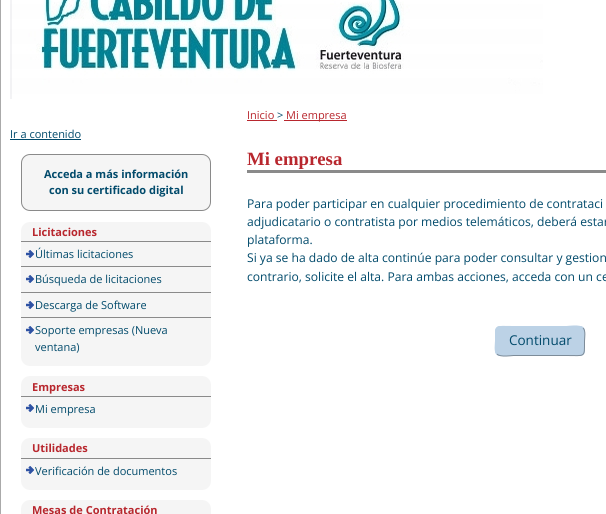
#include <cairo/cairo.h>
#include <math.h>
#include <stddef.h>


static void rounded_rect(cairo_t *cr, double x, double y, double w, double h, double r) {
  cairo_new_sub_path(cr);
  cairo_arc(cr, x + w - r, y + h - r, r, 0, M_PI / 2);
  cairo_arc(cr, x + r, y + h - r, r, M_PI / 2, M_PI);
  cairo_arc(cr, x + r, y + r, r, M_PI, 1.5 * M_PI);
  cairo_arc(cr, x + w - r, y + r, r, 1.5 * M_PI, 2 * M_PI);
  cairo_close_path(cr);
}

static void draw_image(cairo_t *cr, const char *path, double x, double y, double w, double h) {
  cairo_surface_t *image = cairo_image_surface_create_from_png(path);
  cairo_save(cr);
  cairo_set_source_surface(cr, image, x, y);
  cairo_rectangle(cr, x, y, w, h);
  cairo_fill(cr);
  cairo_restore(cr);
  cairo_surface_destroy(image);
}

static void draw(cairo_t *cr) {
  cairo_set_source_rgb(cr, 1, 1, 1);
  cairo_paint(cr);
  cairo_rectangle(cr, 0.5, -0.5, 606, 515);
  cairo_set_source_rgb(cr, 170 / 255.0, 170 / 255.0, 170 / 255.0);
  cairo_set_line_width(cr, 1);
  cairo_stroke(cr);
  draw_image(cr, "images/1.png", 10, 0, 533, 99);
  cairo_set_source_rgb(cr, 1 / 255.0, 74 / 255.0, 107 / 255.0);
  cairo_rectangle(cr, 10, 139, 71, 1);
  cairo_fill(cr);
  cairo_set_source_rgb(cr, 245 / 255.0, 245 / 255.0, 245 / 255.0);
  rounded_rect(cr, 21.5, 154.5, 189, 56, 8.5);
  cairo_fill_preserve(cr);
  cairo_set_source_rgb(cr, 138 / 255.0, 138 / 255.0, 138 / 255.0);
  cairo_stroke(cr);
  cairo_set_source_rgb(cr, 245 / 255.0, 245 / 255.0, 245 / 255.0);
  cairo_new_path(cr);
  cairo_move_to(cr, 30, 222);
  cairo_line_to(cr, 202, 222);
  cairo_curve_to(cr, 207, 222, 211, 226, 211, 231);
  cairo_line_to(cr, 211, 241);
  cairo_line_to(cr, 21, 241);
  cairo_line_to(cr, 21, 231);
  cairo_curve_to(cr, 21, 226, 25, 222, 30, 222);
  cairo_close_path(cr);
  cairo_fill(cr);
  cairo_new_path(cr);
  cairo_move_to(cr, 21, 241);
  cairo_line_to(cr, 211, 241);
  cairo_line_to(cr, 211, 357);
  cairo_curve_to(cr, 211, 362, 207, 366, 202, 366);
  cairo_line_to(cr, 30, 366);
  cairo_curve_to(cr, 25, 366, 21, 362, 21, 357);
  cairo_close_path(cr);
  cairo_fill(cr);
  draw_image(cr, "images/2.png", 26, 250, 8, 8);
  cairo_set_source_rgb(cr, 138 / 255.0, 138 / 255.0, 138 / 255.0);
  cairo_rectangle(cr, 21, 241, 190, 1);
  cairo_fill(cr);
  draw_image(cr, "images/2.png", 26, 275, 8, 8);
  cairo_rectangle(cr, 21, 266, 190, 1);
  cairo_fill(cr);
  draw_image(cr, "images/2.png", 26, 301, 8, 8);
  cairo_rectangle(cr, 21, 292, 190, 1);
  cairo_fill(cr);
  draw_image(cr, "images/2.png", 26, 326, 8, 8);
  cairo_rectangle(cr, 21, 317, 190, 1);
  cairo_fill(cr);
  cairo_set_source_rgb(cr, 245 / 255.0, 245 / 255.0, 245 / 255.0);
  cairo_new_path(cr);
  cairo_move_to(cr, 30, 376);
  cairo_line_to(cr, 202, 376);
  cairo_curve_to(cr, 207, 376, 211, 380, 211, 385);
  cairo_line_to(cr, 211, 396);
  cairo_line_to(cr, 21, 396);
  cairo_line_to(cr, 21, 385);
  cairo_curve_to(cr, 21, 380, 25, 376, 30, 376);
  cairo_close_path(cr);
  cairo_fill(cr);
  cairo_new_path(cr);
  cairo_move_to(cr, 21, 396);
  cairo_line_to(cr, 211, 396);
  cairo_line_to(cr, 211, 419);
  cairo_curve_to(cr, 211, 424, 207, 428, 202, 428);
  cairo_line_to(cr, 30, 428);
  cairo_curve_to(cr, 25, 428, 21, 424, 21, 419);
  cairo_close_path(cr);
  cairo_fill(cr);
  draw_image(cr, "images/2.png", 26, 404, 8, 8);
  cairo_set_source_rgb(cr, 138 / 255.0, 138 / 255.0, 138 / 255.0);
  cairo_rectangle(cr, 21, 396, 190, 1);
  cairo_fill(cr);
  cairo_set_source_rgb(cr, 245 / 255.0, 245 / 255.0, 245 / 255.0);
  cairo_new_path(cr);
  cairo_move_to(cr, 30, 438);
  cairo_line_to(cr, 202, 438);
  cairo_curve_to(cr, 207, 438, 211, 442, 211, 447);
  cairo_line_to(cr, 211, 458);
  cairo_line_to(cr, 21, 458);
  cairo_line_to(cr, 21, 447);
  cairo_curve_to(cr, 21, 442, 25, 438, 30, 438);
  cairo_close_path(cr);
  cairo_fill(cr);
  cairo_new_path(cr);
  cairo_move_to(cr, 21, 458);
  cairo_line_to(cr, 211, 458);
  cairo_line_to(cr, 211, 481);
  cairo_curve_to(cr, 211, 486, 207, 490, 202, 490);
  cairo_line_to(cr, 30, 490);
  cairo_curve_to(cr, 25, 490, 21, 486, 21, 481);
  cairo_close_path(cr);
  cairo_fill(cr);
  draw_image(cr, "images/2.png", 26, 466, 8, 8);
  cairo_set_source_rgb(cr, 138 / 255.0, 138 / 255.0, 138 / 255.0);
  cairo_rectangle(cr, 21, 458, 190, 1);
  cairo_fill(cr);
  cairo_set_source_rgb(cr, 245 / 255.0, 245 / 255.0, 245 / 255.0);
  cairo_new_path(cr);
  cairo_move_to(cr, 30, 500);
  cairo_line_to(cr, 202, 500);
  cairo_curve_to(cr, 207, 500, 211, 504, 211, 509);
  cairo_line_to(cr, 211, 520);
  cairo_line_to(cr, 21, 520);
  cairo_line_to(cr, 21, 509);
  cairo_curve_to(cr, 21, 504, 25, 500, 30, 500);
  cairo_close_path(cr);
  cairo_fill(cr);
  cairo_set_source_rgb(cr, 184 / 255.0, 39 / 255.0, 46 / 255.0);
  cairo_rectangle(cr, 247, 120, 30, 1);
  cairo_fill(cr);
  cairo_rectangle(cr, 284, 120, 63, 1);
  cairo_fill(cr);
  cairo_set_source_rgb(cr, 138 / 255.0, 138 / 255.0, 138 / 255.0);
  cairo_rectangle(cr, 247, 170, 359, 3);
  cairo_fill(cr);
  cairo_set_source_rgb(cr, 188 / 255.0, 210 / 255.0, 230 / 255.0);
  rounded_rect(cr, 495, 326, 90, 30, 5);
  cairo_fill(cr);
  cairo_new_path(cr);
  cairo_move_to(cr, 583, 328);
  cairo_curve_to(cr, 586, 330.5, 584.5, 338, 584.5, 341);
  cairo_curve_to(cr, 584.5, 358, 585.5, 355.5, 566.5, 355.5);
  cairo_line_to(cr, 513.5, 355.5);
  cairo_curve_to(cr, 512, 355.5, 500, 357.5, 497, 354);
  cairo_set_source_rgb(cr, 125 / 255.0, 140 / 255.0, 153 / 255.0);
  cairo_stroke(cr);
  cairo_new_path(cr);
  cairo_move_to(cr, 497, 354);
  cairo_curve_to(cr, 494, 351.5, 495.5, 344, 495.5, 341);
  cairo_curve_to(cr, 495.5, 324, 494.5, 326.5, 513.5, 326.5);
  cairo_line_to(cr, 566.5, 326.5);
  cairo_curve_to(cr, 568, 326.5, 580, 324.5, 583, 328);
  cairo_set_source_rgb(cr, 188 / 255.0, 210 / 255.0, 230 / 255.0);
  cairo_stroke(cr);
  cairo_select_font_face(cr, "Open Sans", CAIRO_FONT_SLANT_NORMAL, CAIRO_FONT_WEIGHT_NORMAL);
  cairo_set_font_size(cr, 11);
  cairo_set_source_rgb(cr, 1 / 255.0, 74 / 255.0, 107 / 255.0);
  cairo_move_to(cr, 10, 138);
  cairo_show_text(cr, "Ir a contenido");
  cairo_select_font_face(cr, "Open Sans", CAIRO_FONT_SLANT_NORMAL, CAIRO_FONT_WEIGHT_BOLD);
  cairo_move_to(cr, 44, 178);
  cairo_show_text(cr, "Acceda a más información");
  cairo_move_to(cr, 49, 194);
  cairo_show_text(cr, "con su certificado digital");
  cairo_set_source_rgb(cr, 184 / 255.0, 39 / 255.0, 46 / 255.0);
  cairo_move_to(cr, 32, 236);
  cairo_show_text(cr, "Licitaciones");
  cairo_select_font_face(cr, "Open Sans", CAIRO_FONT_SLANT_NORMAL, CAIRO_FONT_WEIGHT_NORMAL);
  cairo_set_source_rgb(cr, 1 / 255.0, 74 / 255.0, 107 / 255.0);
  cairo_move_to(cr, 35, 258);
  cairo_show_text(cr, "Últimas licitaciones");
  cairo_move_to(cr, 35, 283);
  cairo_show_text(cr, "Búsqueda de licitaciones");
  cairo_move_to(cr, 35, 309);
  cairo_show_text(cr, "Descarga de Software");
  cairo_move_to(cr, 35, 334);
  cairo_show_text(cr, "Soporte empresas (Nueva");
  cairo_move_to(cr, 35, 351);
  cairo_show_text(cr, "ventana)");
  cairo_select_font_face(cr, "Open Sans", CAIRO_FONT_SLANT_NORMAL, CAIRO_FONT_WEIGHT_BOLD);
  cairo_set_source_rgb(cr, 184 / 255.0, 39 / 255.0, 46 / 255.0);
  cairo_move_to(cr, 32, 391);
  cairo_show_text(cr, "Empresas");
  cairo_select_font_face(cr, "Open Sans", CAIRO_FONT_SLANT_NORMAL, CAIRO_FONT_WEIGHT_NORMAL);
  cairo_set_source_rgb(cr, 1 / 255.0, 74 / 255.0, 107 / 255.0);
  cairo_move_to(cr, 35, 413);
  cairo_show_text(cr, "Mi empresa");
  cairo_select_font_face(cr, "Open Sans", CAIRO_FONT_SLANT_NORMAL, CAIRO_FONT_WEIGHT_BOLD);
  cairo_set_source_rgb(cr, 184 / 255.0, 39 / 255.0, 46 / 255.0);
  cairo_move_to(cr, 32, 452);
  cairo_show_text(cr, "Utilidades");
  cairo_select_font_face(cr, "Open Sans", CAIRO_FONT_SLANT_NORMAL, CAIRO_FONT_WEIGHT_NORMAL);
  cairo_set_source_rgb(cr, 1 / 255.0, 74 / 255.0, 107 / 255.0);
  cairo_move_to(cr, 35, 475);
  cairo_show_text(cr, "Verificación de documentos");
  cairo_select_font_face(cr, "Open Sans", CAIRO_FONT_SLANT_NORMAL, CAIRO_FONT_WEIGHT_BOLD);
  cairo_set_source_rgb(cr, 184 / 255.0, 39 / 255.0, 46 / 255.0);
  cairo_move_to(cr, 32, 514);
  cairo_show_text(cr, "Mesas de Contratación");
  cairo_select_font_face(cr, "Open Sans", CAIRO_FONT_SLANT_NORMAL, CAIRO_FONT_WEIGHT_NORMAL);
  cairo_move_to(cr, 247, 119);
  cairo_show_text(cr, "Inicio");
  cairo_set_source_rgb(cr, 1 / 255.0, 74 / 255.0, 107 / 255.0);
  cairo_move_to(cr, 277, 119);
  cairo_show_text(cr, ">");
  cairo_set_source_rgb(cr, 184 / 255.0, 39 / 255.0, 46 / 255.0);
  cairo_move_to(cr, 286, 119);
  cairo_show_text(cr, "Mi empresa");
  cairo_select_font_face(cr, "Liberation Serif", CAIRO_FONT_SLANT_NORMAL, CAIRO_FONT_WEIGHT_BOLD);
  cairo_set_font_size(cr, 18.75);
  cairo_move_to(cr, 247, 165);
  cairo_show_text(cr, "Mi empresa");
  cairo_select_font_face(cr, "Open Sans", CAIRO_FONT_SLANT_NORMAL, CAIRO_FONT_WEIGHT_NORMAL);
  cairo_set_font_size(cr, 12.1);
  cairo_set_source_rgb(cr, 1 / 255.0, 74 / 255.0, 107 / 255.0);
  cairo_move_to(cr, 247, 208);
  cairo_show_text(cr, "Para poder participar en cualquier procedimiento de contrataci");
  cairo_move_to(cr, 247, 226);
  cairo_show_text(cr, "adjudicatario o contratista por medios telemáticos, deberá estar");
  cairo_move_to(cr, 247, 244);
  cairo_show_text(cr, "plataforma.");
  cairo_move_to(cr, 247, 262);
  cairo_show_text(cr, "Si ya se ha dado de alta continúe para poder consultar y gestion");
  cairo_move_to(cr, 247, 281);
  cairo_show_text(cr, "contrario, solicite el alta. Para ambas acciones, acceda con un ce");
  cairo_set_font_size(cr, 13.5);
  cairo_move_to(cr, 509, 345);
  cairo_show_text(cr, "Continuar");
}

int main(void) {
  cairo_surface_t *surface = cairo_image_surface_create(CAIRO_FORMAT_RGB24, 606, 514);
  cairo_t *cr = cairo_create(surface);
  cairo_font_options_t *options = cairo_font_options_create();
  cairo_font_options_set_hint_metrics(options, CAIRO_HINT_METRICS_OFF);
  cairo_font_options_set_hint_style(options, CAIRO_HINT_STYLE_NONE);
  cairo_set_font_options(cr, options);
  cairo_set_miter_limit(cr, 4);
  draw(cr);
  cairo_surface_write_to_png(surface, "out.png");
  cairo_font_options_destroy(options);
  cairo_destroy(cr);
  cairo_surface_destroy(surface);
  return 0;
}
